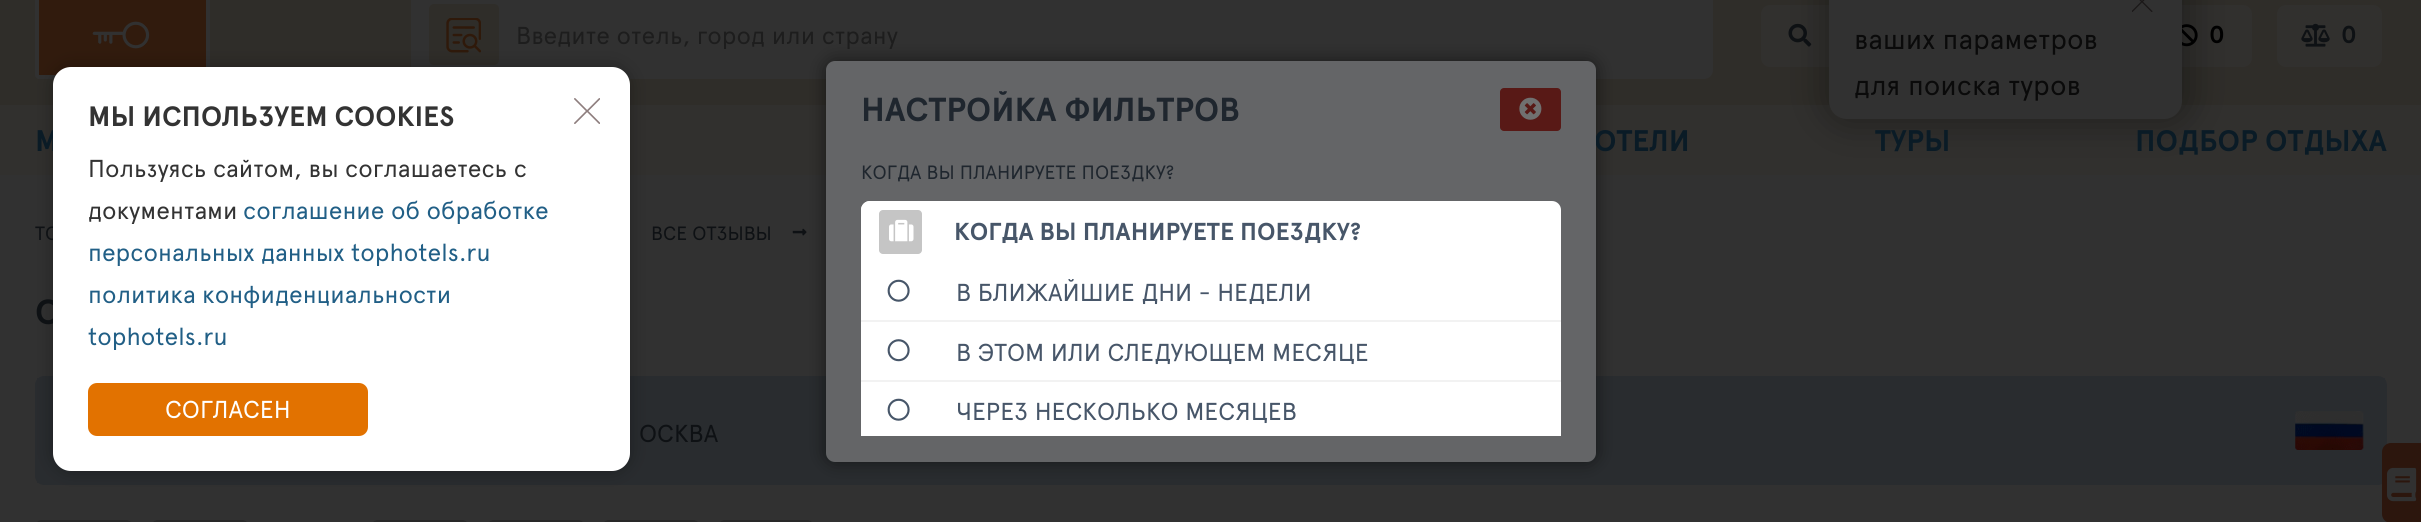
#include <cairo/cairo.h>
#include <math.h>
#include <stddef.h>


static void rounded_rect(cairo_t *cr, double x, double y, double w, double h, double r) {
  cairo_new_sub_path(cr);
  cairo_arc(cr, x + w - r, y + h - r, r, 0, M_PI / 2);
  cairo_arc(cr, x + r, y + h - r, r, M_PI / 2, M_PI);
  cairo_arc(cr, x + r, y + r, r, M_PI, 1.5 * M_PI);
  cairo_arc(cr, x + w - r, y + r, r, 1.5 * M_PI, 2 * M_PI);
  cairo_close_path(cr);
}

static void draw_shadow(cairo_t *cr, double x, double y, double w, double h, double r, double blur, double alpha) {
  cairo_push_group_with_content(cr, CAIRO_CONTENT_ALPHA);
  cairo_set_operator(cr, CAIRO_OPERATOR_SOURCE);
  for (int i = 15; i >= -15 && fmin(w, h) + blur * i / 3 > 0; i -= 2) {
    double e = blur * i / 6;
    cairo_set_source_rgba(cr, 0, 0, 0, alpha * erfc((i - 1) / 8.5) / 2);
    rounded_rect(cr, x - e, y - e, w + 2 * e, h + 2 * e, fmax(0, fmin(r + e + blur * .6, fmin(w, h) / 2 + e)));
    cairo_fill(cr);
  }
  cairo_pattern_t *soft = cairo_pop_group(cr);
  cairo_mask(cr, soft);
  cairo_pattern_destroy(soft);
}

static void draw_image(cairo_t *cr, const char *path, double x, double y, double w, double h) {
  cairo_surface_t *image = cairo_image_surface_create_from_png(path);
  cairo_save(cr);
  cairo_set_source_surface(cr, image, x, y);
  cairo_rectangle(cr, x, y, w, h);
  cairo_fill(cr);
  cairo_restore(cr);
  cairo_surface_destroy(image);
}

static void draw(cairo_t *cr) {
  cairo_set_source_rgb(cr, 49 / 255.0, 49 / 255.0, 49 / 255.0);
  cairo_paint(cr);
  cairo_set_source_rgb(cr, 47 / 255.0, 45 / 255.0, 41 / 255.0);
  cairo_rectangle(cr, 0, 0, 2421, 105);
  cairo_fill(cr);
  cairo_set_source_rgb(cr, 49 / 255.0, 27 / 255.0, 13 / 255.0);
  rounded_rect(cr, 37, -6, 171, 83, 2);
  cairo_fill_preserve(cr);
  cairo_set_source_rgb(cr, 49 / 255.0, 49 / 255.0, 49 / 255.0);
  cairo_set_line_width(cr, 4);
  cairo_stroke(cr);
  draw_image(cr, "images/1.png", 92, 21, 58, 28);
  rounded_rect(cr, 411, -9, 1302, 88, 9);
  cairo_fill(cr);
  cairo_set_source_rgb(cr, 47 / 255.0, 45 / 255.0, 41 / 255.0);
  rounded_rect(cr, 429, 4, 70, 61, 5);
  cairo_fill(cr);
  draw_image(cr, "images/2.png", 446, 18, 35, 35);
  cairo_set_source_rgb(cr, 49 / 255.0, 48 / 255.0, 46 / 255.0);
  rounded_rect(cr, 1761, 5, 105, 62, 9);
  cairo_fill(cr);
  draw_image(cr, "images/3.png", 1788, 23, 24, 24);
  rounded_rect(cr, 2147, 5, 105, 62, 9);
  cairo_fill(cr);
  draw_image(cr, "images/4.png", 2182, 24, 16, 23);
  rounded_rect(cr, 2277, 5, 105, 62, 9);
  cairo_fill(cr);
  draw_image(cr, "images/5.png", 2301, 23, 29, 24);
  cairo_rectangle(cr, 0, 105, 2421, 70);
  cairo_fill(cr);
  cairo_set_source_rgb(cr, 0, 0, 0);
  draw_shadow(cr, 1822, -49, 371, 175, 26, 17.5, 0.3);
  cairo_set_source_rgb(cr, 49 / 255.0, 49 / 255.0, 49 / 255.0);
  rounded_rect(cr, 1829, -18, 353, 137, 18);
  cairo_fill(cr);
  draw_image(cr, "images/6.png", 2132, 0, 21, 12);
  draw_image(cr, "images/7.png", 792, 228, 15, 8);
  rounded_rect(cr, 36, 377, 2350, 107, 8);
  cairo_set_source_rgb(cr, 41 / 255.0, 44 / 255.0, 47 / 255.0);
  cairo_set_line_width(cr, 2);
  cairo_stroke(cr);
  cairo_rectangle(cr, 37, 378, 2348, 105);
  cairo_fill(cr);
  cairo_set_source_rgb(cr, 0, 0, 0);
  draw_shadow(cr, 826, 61, 770, 401, 9, 9, 0.5);
  draw_image(cr, "images/12.png", 2295, 411, 69, 39);
  cairo_set_source_rgb(cr, 44 / 255.0, 22 / 255.0, 13 / 255.0);
  cairo_new_path(cr);
  cairo_move_to(cr, 2391, 443);
  cairo_line_to(cr, 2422, 443);
  cairo_line_to(cr, 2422, 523);
  cairo_line_to(cr, 2391, 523);
  cairo_curve_to(cr, 2386, 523, 2382, 519, 2382, 514);
  cairo_line_to(cr, 2382, 452);
  cairo_curve_to(cr, 2382, 447, 2386, 443, 2391, 443);
  cairo_close_path(cr);
  cairo_fill(cr);
  draw_image(cr, "images/13.png", 2387, 467, 30, 35);
  cairo_set_source_rgb(cr, 40 / 255.0, 40 / 255.0, 40 / 255.0);
  rounded_rect(cr, 35, 520, 98, 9, 7);
  cairo_fill(cr);
  rounded_rect(cr, 151, 520, 98, 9, 7);
  cairo_fill(cr);
  rounded_rect(cr, 371, 520, 98, 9, 7);
  cairo_fill(cr);
  rounded_rect(cr, 487, 520, 98, 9, 7);
  cairo_fill(cr);
  rounded_rect(cr, 602, 520, 98, 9, 7);
  cairo_fill(cr);
  rounded_rect(cr, 718, 520, 96, 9, 7);
  cairo_fill(cr);
  cairo_set_source_rgb(cr, 0, 0, 0);
  draw_shadow(cr, 53, 67, 577, 404, 18, 9, 0.3);
  cairo_select_font_face(cr, "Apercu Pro", CAIRO_FONT_SLANT_NORMAL, CAIRO_FONT_WEIGHT_NORMAL);
  cairo_set_font_size(cr, 24.5);
  cairo_set_source_rgb(cr, 29 / 255.0, 29 / 255.0, 29 / 255.0);
  cairo_move_to(cr, 516, 44);
  cairo_show_text(cr, "Введите отель, город или страну");
  cairo_select_font_face(cr, "Apercu Pro", CAIRO_FONT_SLANT_NORMAL, CAIRO_FONT_WEIGHT_BOLD);
  cairo_set_source_rgb(cr, 0, 0, 0);
  cairo_move_to(cr, 2209, 43);
  cairo_show_text(cr, "0");
  cairo_set_source_rgb(cr, 14 / 255.0, 17 / 255.0, 20 / 255.0);
  cairo_move_to(cr, 2341, 43);
  cairo_show_text(cr, "0");
  cairo_select_font_face(cr, "Apercu Pro", CAIRO_FONT_SLANT_NORMAL, CAIRO_FONT_WEIGHT_NORMAL);
  cairo_set_font_size(cr, 28);
  cairo_set_source_rgb(cr, 10 / 255.0, 10 / 255.0, 10 / 255.0);
  cairo_move_to(cr, 1854, 49);
  cairo_show_text(cr, "ваших параметров");
  cairo_move_to(cr, 1854, 95);
  cairo_show_text(cr, "для поиска туров");
  cairo_select_font_face(cr, "Apercu Pro", CAIRO_FONT_SLANT_NORMAL, CAIRO_FONT_WEIGHT_BOLD);
  cairo_set_font_size(cr, 29.75);
  cairo_set_source_rgb(cr, 10 / 255.0, 27 / 255.0, 38 / 255.0);
  cairo_move_to(cr, 35, 151);
  cairo_show_text(cr, "М");
  cairo_move_to(cr, 1594, 151);
  cairo_show_text(cr, "ОТЕЛИ");
  cairo_move_to(cr, 1875, 151);
  cairo_show_text(cr, "ТУРЫ");
  cairo_move_to(cr, 2135, 151);
  cairo_show_text(cr, "ПОДБОР ОТДЫХА");
  cairo_select_font_face(cr, "Apercu Pro", CAIRO_FONT_SLANT_NORMAL, CAIRO_FONT_WEIGHT_NORMAL);
  cairo_set_font_size(cr, 19.25);
  cairo_set_source_rgb(cr, 14 / 255.0, 17 / 255.0, 20 / 255.0);
  cairo_move_to(cr, 35, 240);
  cairo_show_text(cr, "ТО");
  cairo_move_to(cr, 651, 240);
  cairo_show_text(cr, "ВСЕ ОТЗЫВЫ");
  cairo_set_source_rgb(cr, 100 / 255.0, 101 / 255.0, 103 / 255.0);
  rounded_rect(cr, 826, 61, 770, 401, 9);
  cairo_fill(cr);
  cairo_select_font_face(cr, "Apercu Pro", CAIRO_FONT_SLANT_NORMAL, CAIRO_FONT_WEIGHT_BOLD);
  cairo_set_font_size(cr, 33.25);
  cairo_set_source_rgb(cr, 31 / 255.0, 38 / 255.0, 46 / 255.0);
  cairo_move_to(cr, 861, 121);
  cairo_show_text(cr, "НАСТРОЙКА ФИЛЬТРОВ");
  cairo_set_source_rgb(cr, 88 / 255.0, 25 / 255.0, 22 / 255.0);
  rounded_rect(cr, 1500, 88, 61, 43, 4);
  cairo_fill(cr);
  draw_image(cr, "images/8.png", 1519, 97, 23, 23);
  cairo_select_font_face(cr, "Apercu Pro", CAIRO_FONT_SLANT_NORMAL, CAIRO_FONT_WEIGHT_NORMAL);
  cairo_set_font_size(cr, 19.25);
  cairo_set_source_rgb(cr, 31 / 255.0, 38 / 255.0, 46 / 255.0);
  cairo_move_to(cr, 861, 179);
  cairo_show_text(cr, "КОГДА ВЫ ПЛАНИРУЕТЕ ПОЕЗДКУ?");
  cairo_set_source_rgb(cr, 1, 1, 1);
  rounded_rect(cr, 861, 201, 700, 62, 9);
  cairo_fill(cr);
  rounded_rect(cr, 861, 201, 665, 62, 9);
  cairo_fill(cr);
  cairo_set_source_rgb(cr, 197 / 255.0, 197 / 255.0, 197 / 255.0);
  rounded_rect(cr, 879, 210, 43, 44, 4);
  cairo_fill(cr);
  draw_image(cr, "images/9.png", 889, 219, 25, 23);
  cairo_select_font_face(cr, "Apercu Pro", CAIRO_FONT_SLANT_NORMAL, CAIRO_FONT_WEIGHT_BOLD);
  cairo_set_font_size(cr, 24.5);
  cairo_set_source_rgb(cr, 71 / 255.0, 86 / 255.0, 105 / 255.0);
  cairo_move_to(cr, 954, 240);
  cairo_show_text(cr, "КОГДА ВЫ ПЛАНИРУЕТЕ ПОЕЗДКУ?");
  cairo_set_source_rgb(cr, 1, 1, 1);
  cairo_rectangle(cr, 861, 254, 700, 182);
  cairo_fill(cr);
  cairo_set_source_rgb(cr, 242 / 255.0, 242 / 255.0, 242 / 255.0);
  cairo_rectangle(cr, 861, 320, 700, 2);
  cairo_fill(cr);
  draw_image(cr, "images/10.png", 887, 279, 23, 23);
  cairo_select_font_face(cr, "Apercu Pro", CAIRO_FONT_SLANT_NORMAL, CAIRO_FONT_WEIGHT_NORMAL);
  cairo_set_source_rgb(cr, 71 / 255.0, 86 / 255.0, 105 / 255.0);
  cairo_move_to(cr, 956, 301);
  cairo_show_text(cr, "В БЛИЖАЙШИЕ ДНИ - НЕДЕЛИ");
  cairo_set_source_rgb(cr, 242 / 255.0, 242 / 255.0, 242 / 255.0);
  cairo_rectangle(cr, 861, 380, 700, 2);
  cairo_fill(cr);
  draw_image(cr, "images/11.png", 887, 339, 23, 23);
  cairo_set_source_rgb(cr, 71 / 255.0, 86 / 255.0, 105 / 255.0);
  cairo_move_to(cr, 956, 361);
  cairo_show_text(cr, "В ЭТОМ ИЛИ СЛЕДУЮЩЕМ МЕСЯЦЕ");
  draw_image(cr, "images/10.png", 887, 398, 23, 23);
  cairo_move_to(cr, 956, 420);
  cairo_show_text(cr, "ЧЕРЕЗ НЕСКОЛЬКО МЕСЯЦЕВ");
  cairo_select_font_face(cr, "Apercu Pro", CAIRO_FONT_SLANT_NORMAL, CAIRO_FONT_WEIGHT_BOLD);
  cairo_set_font_size(cr, 35);
  cairo_set_source_rgb(cr, 14 / 255.0, 17 / 255.0, 20 / 255.0);
  cairo_move_to(cr, 35, 324);
  cairo_show_text(cr, "О");
  cairo_select_font_face(cr, "Apercu Pro", CAIRO_FONT_SLANT_NORMAL, CAIRO_FONT_WEIGHT_NORMAL);
  cairo_set_font_size(cr, 24.5);
  cairo_move_to(cr, 639, 442);
  cairo_show_text(cr, "ОСКВА");
  cairo_set_source_rgb(cr, 1, 1, 1);
  rounded_rect(cr, 53, 67, 577, 404, 18);
  cairo_fill(cr);
  cairo_select_font_face(cr, "Apercu Pro", CAIRO_FONT_SLANT_NORMAL, CAIRO_FONT_WEIGHT_BOLD);
  cairo_set_font_size(cr, 28);
  cairo_set_source_rgb(cr, 51 / 255.0, 51 / 255.0, 51 / 255.0);
  cairo_move_to(cr, 88, 126);
  cairo_show_text(cr, "МЫ ИСПОЛЬЗУЕМ COOKIES");
  draw_image(cr, "images/14.png", 574, 98, 26, 26);
  cairo_select_font_face(cr, "Apercu Pro", CAIRO_FONT_SLANT_NORMAL, CAIRO_FONT_WEIGHT_NORMAL);
  cairo_set_font_size(cr, 24.5);
  cairo_move_to(cr, 88, 177);
  cairo_show_text(cr, "Пользуясь сайтом, вы соглашаетесь с");
  cairo_move_to(cr, 88, 219);
  cairo_show_text(cr, "документами");
  cairo_set_source_rgb(cr, 33 / 255.0, 95 / 255.0, 134 / 255.0);
  cairo_move_to(cr, 243, 219);
  cairo_show_text(cr, "соглашение об обработке");
  cairo_move_to(cr, 88, 261);
  cairo_show_text(cr, "персональных данных tophotels.ru");
  cairo_move_to(cr, 88, 303);
  cairo_show_text(cr, "политика конфиденциальности");
  cairo_move_to(cr, 88, 345);
  cairo_show_text(cr, "tophotels.ru");
  cairo_set_source_rgb(cr, 226 / 255.0, 114 / 255.0, 0);
  rounded_rect(cr, 88, 383, 280, 53, 9);
  cairo_fill(cr);
  cairo_set_source_rgb(cr, 1, 1, 1);
  cairo_move_to(cr, 165, 418);
  cairo_show_text(cr, "СОГЛАСЕН");
}

int main(void) {
  cairo_surface_t *surface = cairo_image_surface_create(CAIRO_FORMAT_RGB24, 2421, 522);
  cairo_t *cr = cairo_create(surface);
  cairo_font_options_t *options = cairo_font_options_create();
  cairo_font_options_set_hint_metrics(options, CAIRO_HINT_METRICS_OFF);
  cairo_font_options_set_hint_style(options, CAIRO_HINT_STYLE_NONE);
  cairo_set_font_options(cr, options);
  cairo_set_miter_limit(cr, 4);
  draw(cr);
  cairo_surface_write_to_png(surface, "out.png");
  cairo_font_options_destroy(options);
  cairo_destroy(cr);
  cairo_surface_destroy(surface);
  return 0;
}
